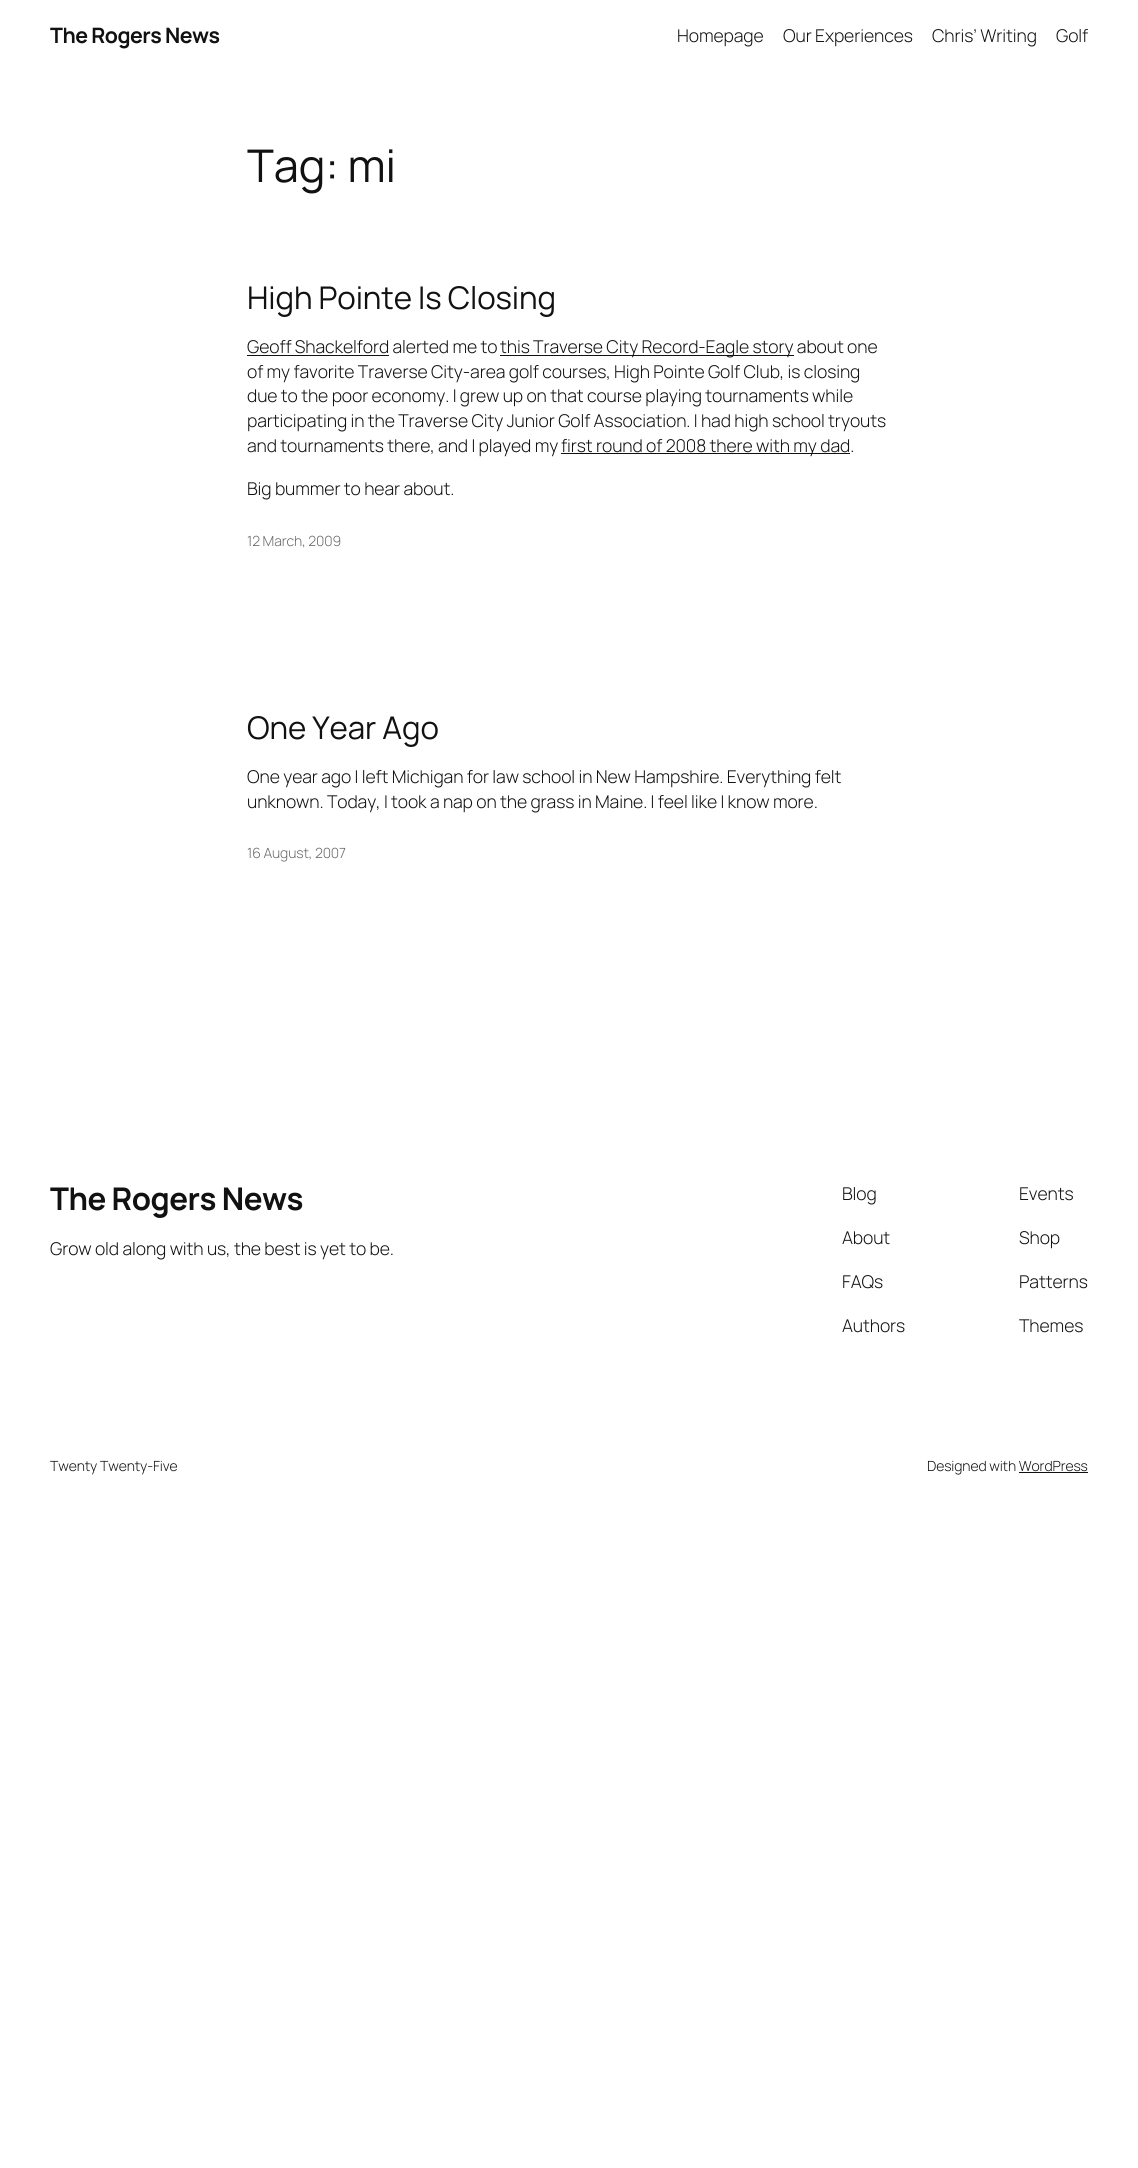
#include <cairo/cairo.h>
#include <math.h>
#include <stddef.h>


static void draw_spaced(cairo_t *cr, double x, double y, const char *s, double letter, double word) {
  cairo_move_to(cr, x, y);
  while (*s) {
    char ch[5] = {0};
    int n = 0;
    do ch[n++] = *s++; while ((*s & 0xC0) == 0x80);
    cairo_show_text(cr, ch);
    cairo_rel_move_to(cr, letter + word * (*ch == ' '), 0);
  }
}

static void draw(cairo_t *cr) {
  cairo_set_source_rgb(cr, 1, 1, 1);
  cairo_paint(cr);
  cairo_set_source_rgb(cr, 17 / 255.0, 17 / 255.0, 17 / 255.0);
  cairo_rectangle(cr, 247, 355, 142, 1);
  cairo_fill(cr);
  cairo_rectangle(cr, 500, 355, 294, 1);
  cairo_fill(cr);
  cairo_rectangle(cr, 561, 453, 289, 1);
  cairo_fill(cr);
  cairo_rectangle(cr, 1019, 1472, 69, 1);
  cairo_fill(cr);
  cairo_select_font_face(cr, "Manrope", CAIRO_FONT_SLANT_NORMAL, CAIRO_FONT_WEIGHT_BOLD);
  cairo_set_font_size(cr, 21.25);
  draw_spaced(cr, 50, 43, "The Rogers News", -0.5, 0);
  cairo_select_font_face(cr, "Manrope Light", CAIRO_FONT_SLANT_NORMAL, CAIRO_FONT_WEIGHT_NORMAL);
  cairo_set_font_size(cr, 17.6);
  draw_spaced(cr, 677, 42, "Homepage", -0.1, 0);
  draw_spaced(cr, 783, 42, "Our Experiences", -0.1, 0);
  draw_spaced(cr, 932, 42, "Chris’ Writing", -0.1, 0);
  draw_spaced(cr, 1056, 42, "Golf", -0.1, 0);
  cairo_select_font_face(cr, "Manrope", CAIRO_FONT_SLANT_NORMAL, CAIRO_FONT_WEIGHT_NORMAL);
  cairo_set_font_size(cr, 45);
  draw_spaced(cr, 247, 182, "Tag: mi", -0.1, 0);
  cairo_set_font_size(cr, 31.25);
  draw_spaced(cr, 247, 309, "High Pointe Is Closing", -0.1, 0);
  cairo_select_font_face(cr, "Manrope Light", CAIRO_FONT_SLANT_NORMAL, CAIRO_FONT_WEIGHT_NORMAL);
  cairo_set_font_size(cr, 17.6);
  draw_spaced(cr, 247, 353, "Geoff Shackelford alerted me to", -0.1, 0);
  draw_spaced(cr, 500, 353, "this Traverse City Record-Eagle story about one", -0.1, 0);
  draw_spaced(cr, 247, 378, "of my favorite Traverse City-area golf courses, High Pointe Golf Club, is closing", -0.1, 0);
  draw_spaced(cr, 247, 402, "due to the poor economy. I grew up on that course playing tournaments while", -0.1, 0);
  draw_spaced(cr, 247, 427, "participating in the Traverse City Junior Golf Association. I had high school tryouts", -0.1, 0);
  draw_spaced(cr, 247, 452, "and tournaments there, and I played my", -0.1, 0);
  draw_spaced(cr, 561, 452, "first round of 2008 there with my dad.", -0.1, 0);
  draw_spaced(cr, 247, 495, "Big bummer to hear about.", -0.1, 0);
  cairo_set_font_size(cr, 14);
  cairo_set_source_rgb(cr, 104 / 255.0, 104 / 255.0, 104 / 255.0);
  draw_spaced(cr, 247, 546, "12 March, 2009", -0.1, 0);
  cairo_select_font_face(cr, "Manrope", CAIRO_FONT_SLANT_NORMAL, CAIRO_FONT_WEIGHT_NORMAL);
  cairo_set_font_size(cr, 31.25);
  cairo_set_source_rgb(cr, 17 / 255.0, 17 / 255.0, 17 / 255.0);
  draw_spaced(cr, 247, 739, "One Year Ago", -0.1, 0);
  cairo_select_font_face(cr, "Manrope Light", CAIRO_FONT_SLANT_NORMAL, CAIRO_FONT_WEIGHT_NORMAL);
  cairo_set_font_size(cr, 17.6);
  draw_spaced(cr, 247, 783, "One year ago I left Michigan for law school in New Hampshire. Everything felt", -0.1, 0);
  draw_spaced(cr, 247, 808, "unknown. Today, I took a nap on the grass in Maine. I feel like I know more.", -0.1, 0);
  cairo_set_font_size(cr, 14);
  cairo_set_source_rgb(cr, 104 / 255.0, 104 / 255.0, 104 / 255.0);
  draw_spaced(cr, 247, 858, "16 August, 2007", -0.1, 0);
  cairo_select_font_face(cr, "Manrope", CAIRO_FONT_SLANT_NORMAL, CAIRO_FONT_WEIGHT_BOLD);
  cairo_set_font_size(cr, 31.25);
  cairo_set_source_rgb(cr, 17 / 255.0, 17 / 255.0, 17 / 255.0);
  draw_spaced(cr, 50, 1210, "The Rogers News", -0.5, 0);
  cairo_select_font_face(cr, "Manrope Light", CAIRO_FONT_SLANT_NORMAL, CAIRO_FONT_WEIGHT_NORMAL);
  cairo_set_font_size(cr, 17.6);
  draw_spaced(cr, 50, 1255, "Grow old along with us, the best is yet to be.", -0.1, 0);
  draw_spaced(cr, 842, 1200, "Blog", -0.1, 0);
  draw_spaced(cr, 842, 1244, "About", -0.1, 0);
  draw_spaced(cr, 842, 1288, "FAQs", -0.1, 0);
  draw_spaced(cr, 842, 1332, "Authors", -0.1, 0);
  draw_spaced(cr, 1019, 1200, "Events", -0.1, 0);
  draw_spaced(cr, 1019, 1244, "Shop", -0.1, 0);
  draw_spaced(cr, 1019, 1288, "Patterns", -0.1, 0);
  draw_spaced(cr, 1019, 1332, "Themes", -0.1, 0);
  cairo_set_font_size(cr, 14);
  draw_spaced(cr, 50, 1471, "Twenty Twenty-Five", -0.1, 0);
  draw_spaced(cr, 927, 1471, "Designed with WordPress", -0.1, 0);
}

int main(void) {
  cairo_surface_t *surface = cairo_image_surface_create(CAIRO_FORMAT_RGB24, 1138, 2168);
  cairo_t *cr = cairo_create(surface);
  cairo_font_options_t *options = cairo_font_options_create();
  cairo_font_options_set_hint_metrics(options, CAIRO_HINT_METRICS_OFF);
  cairo_font_options_set_hint_style(options, CAIRO_HINT_STYLE_NONE);
  cairo_set_font_options(cr, options);
  cairo_set_miter_limit(cr, 4);
  draw(cr);
  cairo_surface_write_to_png(surface, "out.png");
  cairo_font_options_destroy(options);
  cairo_destroy(cr);
  cairo_surface_destroy(surface);
  return 0;
}
